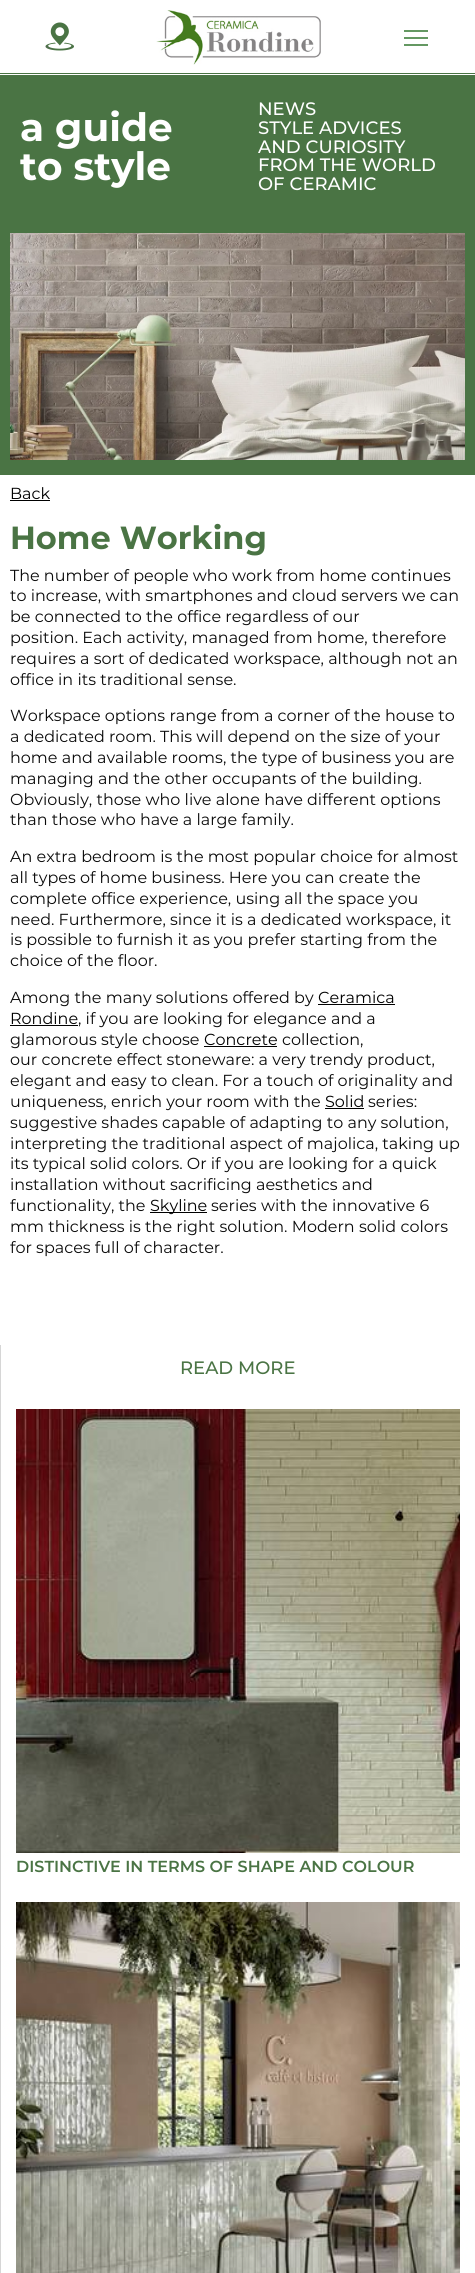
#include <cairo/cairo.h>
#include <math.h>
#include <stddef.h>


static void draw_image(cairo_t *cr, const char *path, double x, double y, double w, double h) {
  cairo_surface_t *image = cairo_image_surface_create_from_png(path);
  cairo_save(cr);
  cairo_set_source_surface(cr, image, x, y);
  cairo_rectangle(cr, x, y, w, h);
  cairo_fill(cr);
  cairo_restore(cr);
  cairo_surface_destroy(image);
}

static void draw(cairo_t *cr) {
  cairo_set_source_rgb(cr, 1, 1, 1);
  cairo_paint(cr);
  cairo_set_source_rgb(cr, 74 / 255.0, 116 / 255.0, 68 / 255.0);
  cairo_rectangle(cr, 0, 73, 475, 1);
  cairo_fill(cr);
  draw_image(cr, "images/1.png", 45, 22, 29, 29);
  draw_image(cr, "images/2.png", 156, 10, 165, 55);
  cairo_set_source_rgb(cr, 100 / 255.0, 152 / 255.0, 98 / 255.0);
  cairo_rectangle(cr, 404, 44, 24, 2);
  cairo_fill(cr);
  cairo_rectangle(cr, 404, 37, 24, 2);
  cairo_fill(cr);
  cairo_rectangle(cr, 404, 30, 24, 2);
  cairo_fill(cr);
  cairo_set_source_rgb(cr, 74 / 255.0, 116 / 255.0, 68 / 255.0);
  cairo_rectangle(cr, 0, 75, 475, 400);
  cairo_fill(cr);
  draw_image(cr, "images/3.png", 10, 233, 455, 227);
  cairo_set_source_rgb(cr, 0, 0, 0);
  cairo_rectangle(cr, 10, 500, 40, 1);
  cairo_fill(cr);
  cairo_rectangle(cr, 318, 1004, 77, 1);
  cairo_fill(cr);
  cairo_rectangle(cr, 10, 1025, 68, 1);
  cairo_fill(cr);
  cairo_rectangle(cr, 204, 1046, 73, 1);
  cairo_fill(cr);
  cairo_rectangle(cr, 325, 1108, 39, 1);
  cairo_fill(cr);
  cairo_rectangle(cr, 150, 1212, 57, 1);
  cairo_fill(cr);
  cairo_set_source_rgb(cr, 214 / 255.0, 214 / 255.0, 214 / 255.0);
  cairo_rectangle(cr, 0, 1345, 1, 928);
  cairo_fill(cr);
  draw_image(cr, "images/4.png", 16, 1409, 444, 444);
  draw_image(cr, "images/5.png", 16, 1902, 444, 371);
  cairo_select_font_face(cr, "Montserrat", CAIRO_FONT_SLANT_NORMAL, CAIRO_FONT_WEIGHT_BOLD);
  cairo_set_font_size(cr, 39);
  cairo_set_source_rgb(cr, 1, 1, 1);
  cairo_move_to(cr, 20, 141);
  cairo_show_text(cr, "a guide");
  cairo_move_to(cr, 20, 180);
  cairo_show_text(cr, "to style");
  cairo_select_font_face(cr, "Montserrat Medium", CAIRO_FONT_SLANT_NORMAL, CAIRO_FONT_WEIGHT_NORMAL);
  cairo_set_font_size(cr, 18);
  cairo_move_to(cr, 258, 115);
  cairo_show_text(cr, "NEWS");
  cairo_move_to(cr, 258, 134);
  cairo_show_text(cr, "STYLE ADVICES");
  cairo_move_to(cr, 258, 153);
  cairo_show_text(cr, "AND CURIOSITY");
  cairo_move_to(cr, 258, 171);
  cairo_show_text(cr, "FROM THE WORLD");
  cairo_move_to(cr, 258, 190);
  cairo_show_text(cr, "OF CERAMIC");
  cairo_select_font_face(cr, "Montserrat", CAIRO_FONT_SLANT_NORMAL, CAIRO_FONT_WEIGHT_NORMAL);
  cairo_set_font_size(cr, 16);
  cairo_set_source_rgb(cr, 0, 0, 0);
  cairo_move_to(cr, 10, 499);
  cairo_show_text(cr, "Back");
  cairo_select_font_face(cr, "Montserrat", CAIRO_FONT_SLANT_NORMAL, CAIRO_FONT_WEIGHT_BOLD);
  cairo_set_font_size(cr, 32);
  cairo_set_source_rgb(cr, 74 / 255.0, 116 / 255.0, 68 / 255.0);
  cairo_move_to(cr, 10, 549);
  cairo_show_text(cr, "Home Working");
  cairo_select_font_face(cr, "Montserrat", CAIRO_FONT_SLANT_NORMAL, CAIRO_FONT_WEIGHT_NORMAL);
  cairo_set_font_size(cr, 16);
  cairo_set_source_rgb(cr, 10 / 255.0, 10 / 255.0, 10 / 255.0);
  cairo_move_to(cr, 10, 581);
  cairo_show_text(cr, "The number of people who work from home continues");
  cairo_move_to(cr, 10, 601);
  cairo_show_text(cr, "to increase, with smartphones and cloud servers we can");
  cairo_move_to(cr, 10, 622);
  cairo_show_text(cr, "be connected to the office regardless of our");
  cairo_move_to(cr, 10, 643);
  cairo_show_text(cr, "position. Each activity, managed from home, therefore");
  cairo_move_to(cr, 10, 664);
  cairo_show_text(cr, "requires a sort of dedicated workspace, although not an");
  cairo_move_to(cr, 10, 685);
  cairo_show_text(cr, "office in its traditional sense.");
  cairo_move_to(cr, 10, 721);
  cairo_show_text(cr, "Workspace options range from a corner of the house to");
  cairo_move_to(cr, 10, 742);
  cairo_show_text(cr, "a dedicated room. This will depend on the size of your");
  cairo_move_to(cr, 10, 763);
  cairo_show_text(cr, "home and available rooms, the type of business you are");
  cairo_move_to(cr, 10, 784);
  cairo_show_text(cr, "managing and the other occupants of the building.");
  cairo_move_to(cr, 10, 805);
  cairo_show_text(cr, "Obviously, those who live alone have different options");
  cairo_move_to(cr, 10, 825);
  cairo_show_text(cr, "than those who have a large family.");
  cairo_move_to(cr, 10, 862);
  cairo_show_text(cr, "An extra bedroom is the most popular choice for almost");
  cairo_move_to(cr, 10, 883);
  cairo_show_text(cr, "all types of home business. Here you can create the");
  cairo_move_to(cr, 10, 904);
  cairo_show_text(cr, "complete office experience, using all the space you");
  cairo_move_to(cr, 10, 925);
  cairo_show_text(cr, "need. Furthermore, since it is a dedicated workspace, it");
  cairo_move_to(cr, 10, 945);
  cairo_show_text(cr, "is possible to furnish it as you prefer starting from the");
  cairo_move_to(cr, 10, 966);
  cairo_show_text(cr, "choice of the floor.");
  cairo_move_to(cr, 10, 1003);
  cairo_show_text(cr, "Among the many solutions offered by");
  cairo_set_source_rgb(cr, 0, 0, 0);
  cairo_move_to(cr, 318, 1003);
  cairo_show_text(cr, "Ceramica");
  cairo_move_to(cr, 10, 1024);
  cairo_show_text(cr, "Rondine");
  cairo_set_source_rgb(cr, 10 / 255.0, 10 / 255.0, 10 / 255.0);
  cairo_move_to(cr, 78, 1024);
  cairo_show_text(cr, ", if you are looking for elegance and a");
  cairo_move_to(cr, 10, 1045);
  cairo_show_text(cr, "glamorous style choose");
  cairo_set_source_rgb(cr, 0, 0, 0);
  cairo_move_to(cr, 204, 1045);
  cairo_show_text(cr, "Concrete");
  cairo_set_source_rgb(cr, 10 / 255.0, 10 / 255.0, 10 / 255.0);
  cairo_move_to(cr, 282, 1045);
  cairo_show_text(cr, "collection,");
  cairo_move_to(cr, 10, 1065);
  cairo_show_text(cr, "our concrete effect stoneware: a very trendy product,");
  cairo_move_to(cr, 10, 1086);
  cairo_show_text(cr, "elegant and easy to clean. For a touch of originality and");
  cairo_move_to(cr, 10, 1107);
  cairo_show_text(cr, "uniqueness, enrich your room with the");
  cairo_set_source_rgb(cr, 0, 0, 0);
  cairo_move_to(cr, 325, 1107);
  cairo_show_text(cr, "Solid");
  cairo_set_source_rgb(cr, 10 / 255.0, 10 / 255.0, 10 / 255.0);
  cairo_move_to(cr, 368, 1107);
  cairo_show_text(cr, "series:");
  cairo_move_to(cr, 10, 1128);
  cairo_show_text(cr, "suggestive shades capable of adapting to any solution,");
  cairo_move_to(cr, 10, 1149);
  cairo_show_text(cr, "interpreting the traditional aspect of majolica, taking up");
  cairo_move_to(cr, 10, 1169);
  cairo_show_text(cr, "its typical solid colors. Or if you are looking for a quick");
  cairo_move_to(cr, 10, 1190);
  cairo_show_text(cr, "installation without sacrificing aesthetics and");
  cairo_move_to(cr, 10, 1211);
  cairo_show_text(cr, "functionality, the");
  cairo_set_source_rgb(cr, 0, 0, 0);
  cairo_move_to(cr, 150, 1211);
  cairo_show_text(cr, "Skyline");
  cairo_set_source_rgb(cr, 10 / 255.0, 10 / 255.0, 10 / 255.0);
  cairo_move_to(cr, 211, 1211);
  cairo_show_text(cr, "series with the innovative 6");
  cairo_move_to(cr, 10, 1232);
  cairo_show_text(cr, "mm thickness is the right solution. Modern solid colors");
  cairo_move_to(cr, 10, 1253);
  cairo_show_text(cr, "for spaces full of character.");
  cairo_select_font_face(cr, "Montserrat Medium", CAIRO_FONT_SLANT_NORMAL, CAIRO_FONT_WEIGHT_NORMAL);
  cairo_set_font_size(cr, 18);
  cairo_set_source_rgb(cr, 74 / 255.0, 116 / 255.0, 68 / 255.0);
  cairo_move_to(cr, 180, 1374);
  cairo_show_text(cr, "READ MORE");
  cairo_select_font_face(cr, "Montserrat SemiBold", CAIRO_FONT_SLANT_NORMAL, CAIRO_FONT_WEIGHT_NORMAL);
  cairo_set_font_size(cr, 16);
  cairo_move_to(cr, 16, 1872);
  cairo_show_text(cr, "DISTINCTIVE IN TERMS OF SHAPE AND COLOUR");
}

int main(void) {
  cairo_surface_t *surface = cairo_image_surface_create(CAIRO_FORMAT_RGB24, 475, 2273);
  cairo_t *cr = cairo_create(surface);
  cairo_font_options_t *options = cairo_font_options_create();
  cairo_font_options_set_hint_metrics(options, CAIRO_HINT_METRICS_OFF);
  cairo_font_options_set_hint_style(options, CAIRO_HINT_STYLE_NONE);
  cairo_set_font_options(cr, options);
  cairo_set_miter_limit(cr, 4);
  draw(cr);
  cairo_surface_write_to_png(surface, "out.png");
  cairo_font_options_destroy(options);
  cairo_destroy(cr);
  cairo_surface_destroy(surface);
  return 0;
}
